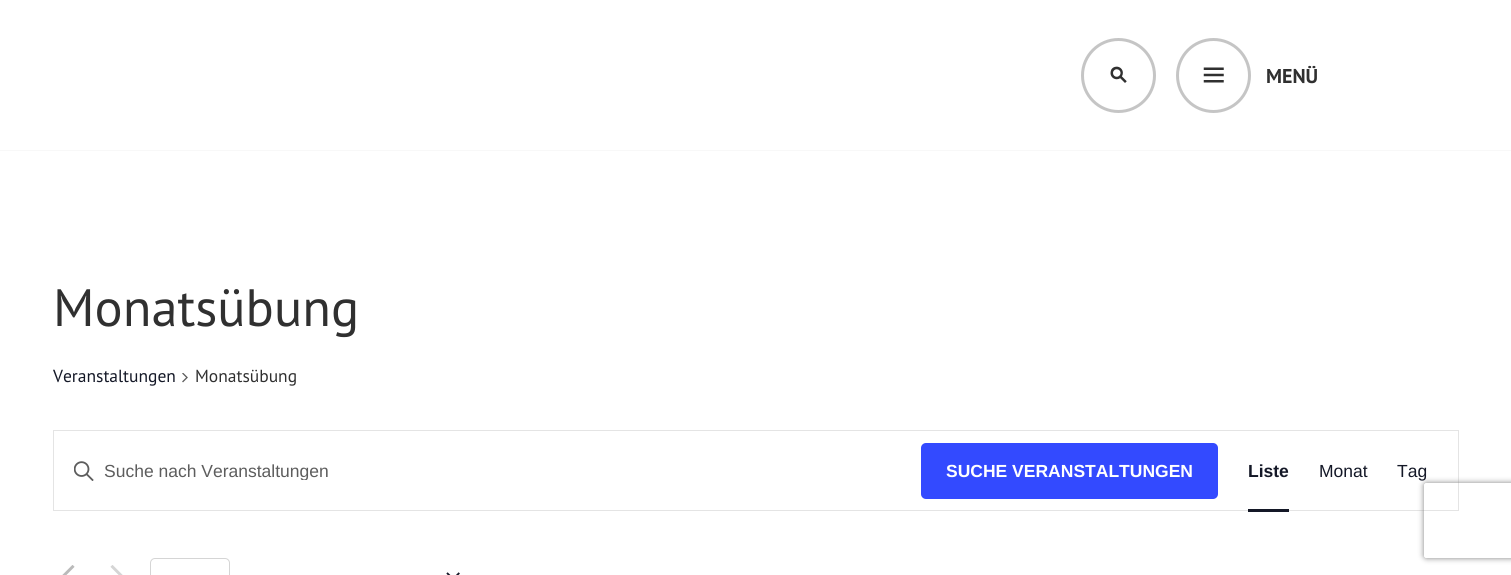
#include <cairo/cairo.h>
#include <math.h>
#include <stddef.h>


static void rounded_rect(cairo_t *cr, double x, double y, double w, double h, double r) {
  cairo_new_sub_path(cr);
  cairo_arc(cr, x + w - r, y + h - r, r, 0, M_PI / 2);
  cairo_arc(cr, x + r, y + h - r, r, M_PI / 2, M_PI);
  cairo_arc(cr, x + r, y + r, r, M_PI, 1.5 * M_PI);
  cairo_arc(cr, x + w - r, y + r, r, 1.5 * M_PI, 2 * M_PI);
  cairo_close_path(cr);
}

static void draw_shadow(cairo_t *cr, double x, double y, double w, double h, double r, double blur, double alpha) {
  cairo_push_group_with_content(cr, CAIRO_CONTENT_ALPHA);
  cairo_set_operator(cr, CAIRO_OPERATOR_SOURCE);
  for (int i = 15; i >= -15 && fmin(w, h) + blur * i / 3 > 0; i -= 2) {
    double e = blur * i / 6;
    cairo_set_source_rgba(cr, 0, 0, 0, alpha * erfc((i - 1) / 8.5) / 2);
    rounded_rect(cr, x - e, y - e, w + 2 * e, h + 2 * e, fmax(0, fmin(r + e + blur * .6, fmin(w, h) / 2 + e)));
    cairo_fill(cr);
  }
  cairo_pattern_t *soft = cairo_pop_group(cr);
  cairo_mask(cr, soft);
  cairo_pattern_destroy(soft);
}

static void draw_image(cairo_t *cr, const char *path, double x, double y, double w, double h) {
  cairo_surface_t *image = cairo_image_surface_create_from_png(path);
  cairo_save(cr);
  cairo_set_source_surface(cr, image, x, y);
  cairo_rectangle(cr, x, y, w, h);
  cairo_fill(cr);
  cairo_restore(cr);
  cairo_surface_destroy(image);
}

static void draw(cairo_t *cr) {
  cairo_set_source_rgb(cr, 1, 1, 1);
  cairo_paint(cr);
  cairo_set_source_rgb(cr, 248 / 255.0, 248 / 255.0, 248 / 255.0);
  cairo_rectangle(cr, 0, 150, 1511, 1);
  cairo_fill(cr);
  cairo_arc(cr, 1118.5, 75.5, 36, 0, 2 * M_PI);
  cairo_set_source_rgb(cr, 197 / 255.0, 197 / 255.0, 197 / 255.0);
  cairo_set_line_width(cr, 3);
  cairo_stroke(cr);
  draw_image(cr, "images/1.png", 1110, 66, 17, 17);
  cairo_arc(cr, 1213.5, 75.5, 36, 0, 2 * M_PI);
  cairo_stroke(cr);
  draw_image(cr, "images/2.png", 1203, 67, 21, 16);
  draw_image(cr, "images/3.png", 182, 373, 6, 10);
  cairo_rectangle(cr, 53.5, 430.5, 1405, 80);
  cairo_set_source_rgb(cr, 228 / 255.0, 228 / 255.0, 228 / 255.0);
  cairo_set_line_width(cr, 1);
  cairo_stroke(cr);
  draw_image(cr, "images/4.png", 74, 461, 20, 20);
  cairo_set_source_rgb(cr, 51 / 255.0, 74 / 255.0, 1);
  rounded_rect(cr, 921, 443, 297, 56, 5);
  cairo_fill(cr);
  cairo_set_source_rgb(cr, 20 / 255.0, 24 / 255.0, 39 / 255.0);
  cairo_rectangle(cr, 1248, 509, 41, 3);
  cairo_fill(cr);
  draw_image(cr, "images/5.png", 62, 565, 13, 10);
  draw_image(cr, "images/6.png", 110, 565, 13, 10);
  rounded_rect(cr, 150.5, 558.5, 79, 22, 4.5);
  cairo_set_source_rgb(cr, 213 / 255.0, 213 / 255.0, 213 / 255.0);
  cairo_stroke(cr);
  draw_image(cr, "images/7.png", 446, 572, 14, 3);
  cairo_save(cr);
  cairo_set_fill_rule(cr, CAIRO_FILL_RULE_EVEN_ODD);
  cairo_new_path(cr);
  cairo_move_to(cr, 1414, 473);
  cairo_line_to(cr, 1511, 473);
  cairo_line_to(cr, 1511, 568);
  cairo_line_to(cr, 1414, 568);
  cairo_close_path(cr);
  cairo_move_to(cr, 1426.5, 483);
  cairo_line_to(cr, 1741.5, 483);
  cairo_curve_to(cr, 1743, 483, 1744, 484, 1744, 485.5);
  cairo_line_to(cr, 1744, 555.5);
  cairo_curve_to(cr, 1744, 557, 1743, 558, 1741.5, 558);
  cairo_line_to(cr, 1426.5, 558);
  cairo_curve_to(cr, 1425, 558, 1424, 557, 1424, 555.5);
  cairo_line_to(cr, 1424, 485.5);
  cairo_curve_to(cr, 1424, 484, 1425, 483, 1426.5, 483);
  cairo_close_path(cr);
  cairo_clip(cr);
  cairo_set_source_rgb(cr, 128 / 255.0, 128 / 255.0, 128 / 255.0);
  draw_shadow(cr, 1424, 483, 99, 75, 2.5, 3, 1);
  cairo_restore(cr);
  cairo_select_font_face(cr, "PT Sans", CAIRO_FONT_SLANT_NORMAL, CAIRO_FONT_WEIGHT_BOLD);
  cairo_set_font_size(cr, 20);
  cairo_set_source_rgb(cr, 48 / 255.0, 48 / 255.0, 48 / 255.0);
  cairo_move_to(cr, 1266, 83);
  cairo_show_text(cr, "MENÜ");
  cairo_select_font_face(cr, "PT Sans", CAIRO_FONT_SLANT_NORMAL, CAIRO_FONT_WEIGHT_NORMAL);
  cairo_set_font_size(cr, 52.5);
  cairo_move_to(cr, 53, 326);
  cairo_show_text(cr, "Monatsübung");
  cairo_set_font_size(cr, 17.5);
  cairo_set_source_rgb(cr, 20 / 255.0, 24 / 255.0, 39 / 255.0);
  cairo_move_to(cr, 53, 382);
  cairo_show_text(cr, "Veranstaltungen");
  cairo_set_source_rgb(cr, 48 / 255.0, 48 / 255.0, 48 / 255.0);
  cairo_move_to(cr, 195, 382);
  cairo_show_text(cr, "Monatsübung");
  cairo_save(cr);
  cairo_rectangle(cr, 104, 460, 792, 20);
  cairo_clip(cr);
  cairo_select_font_face(cr, "Liberation Sans", CAIRO_FONT_SLANT_NORMAL, CAIRO_FONT_WEIGHT_NORMAL);
  cairo_set_source_rgb(cr, 93 / 255.0, 93 / 255.0, 93 / 255.0);
  cairo_move_to(cr, 104, 477);
  cairo_show_text(cr, "Suche nach Veranstaltungen");
  cairo_restore(cr);
  cairo_select_font_face(cr, "Liberation Sans", CAIRO_FONT_SLANT_NORMAL, CAIRO_FONT_WEIGHT_BOLD);
  cairo_set_source_rgb(cr, 1, 1, 1);
  cairo_move_to(cr, 946, 477);
  cairo_show_text(cr, "SUCHE VERANSTALTUNGEN");
  cairo_set_source_rgb(cr, 20 / 255.0, 24 / 255.0, 39 / 255.0);
  cairo_move_to(cr, 1248, 477);
  cairo_show_text(cr, "Liste");
  cairo_select_font_face(cr, "Liberation Sans", CAIRO_FONT_SLANT_NORMAL, CAIRO_FONT_WEIGHT_NORMAL);
  cairo_move_to(cr, 1319, 477);
  cairo_show_text(cr, "Monat");
  cairo_move_to(cr, 1397, 477);
  cairo_show_text(cr, "Tag");
}

int main(void) {
  cairo_surface_t *surface = cairo_image_surface_create(CAIRO_FORMAT_RGB24, 1511, 575);
  cairo_t *cr = cairo_create(surface);
  cairo_font_options_t *options = cairo_font_options_create();
  cairo_font_options_set_hint_metrics(options, CAIRO_HINT_METRICS_OFF);
  cairo_font_options_set_hint_style(options, CAIRO_HINT_STYLE_NONE);
  cairo_set_font_options(cr, options);
  cairo_set_miter_limit(cr, 4);
  draw(cr);
  cairo_surface_write_to_png(surface, "out.png");
  cairo_font_options_destroy(options);
  cairo_destroy(cr);
  cairo_surface_destroy(surface);
  return 0;
}
